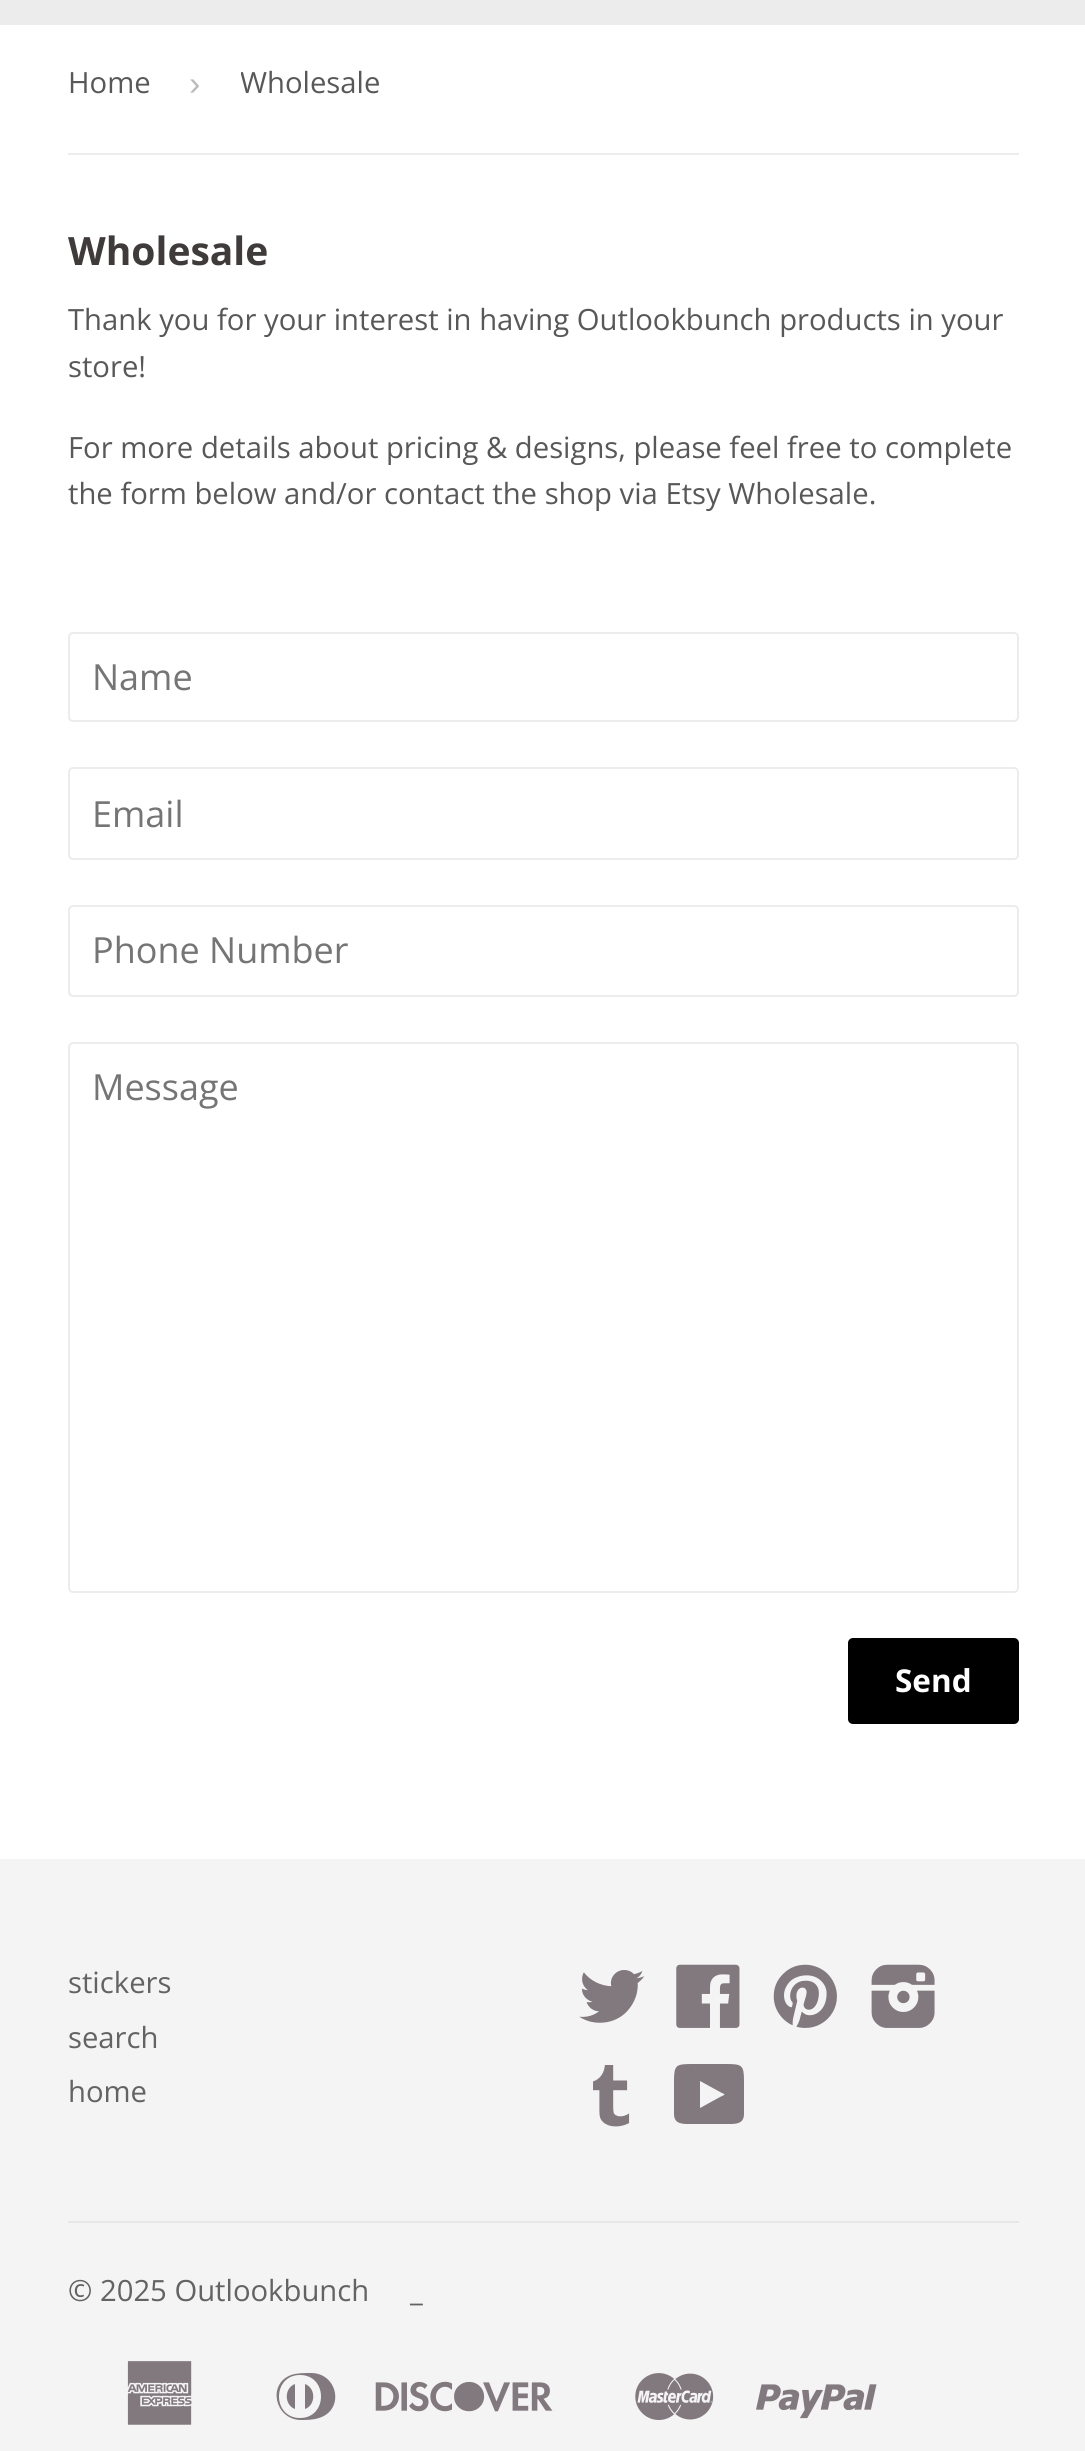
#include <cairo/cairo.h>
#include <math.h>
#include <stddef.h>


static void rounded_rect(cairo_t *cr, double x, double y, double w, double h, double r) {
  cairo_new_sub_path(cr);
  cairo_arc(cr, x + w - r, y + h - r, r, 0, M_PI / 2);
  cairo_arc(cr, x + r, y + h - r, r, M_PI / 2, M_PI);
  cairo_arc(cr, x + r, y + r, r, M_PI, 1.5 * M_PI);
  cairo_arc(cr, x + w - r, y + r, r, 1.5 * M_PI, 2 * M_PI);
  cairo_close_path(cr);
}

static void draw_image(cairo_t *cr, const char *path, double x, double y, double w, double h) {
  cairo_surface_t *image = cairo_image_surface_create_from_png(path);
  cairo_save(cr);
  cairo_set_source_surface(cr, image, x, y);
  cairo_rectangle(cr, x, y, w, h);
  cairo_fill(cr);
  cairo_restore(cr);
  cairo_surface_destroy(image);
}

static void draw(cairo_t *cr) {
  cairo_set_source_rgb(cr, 1, 1, 1);
  cairo_paint(cr);
  cairo_set_source_rgb(cr, 236 / 255.0, 236 / 255.0, 236 / 255.0);
  cairo_rectangle(cr, 0, 0, 1085, 25);
  cairo_fill(cr);
  cairo_rectangle(cr, 68, 153, 951, 2);
  cairo_fill(cr);
  rounded_rect(cr, 69, 633, 949, 88, 4);
  cairo_stroke(cr);
  rounded_rect(cr, 69, 768, 949, 91, 4);
  cairo_stroke(cr);
  rounded_rect(cr, 69, 906, 949, 90, 4);
  cairo_stroke(cr);
  rounded_rect(cr, 69, 1043, 949, 549, 4);
  cairo_stroke(cr);
  cairo_set_source_rgb(cr, 0, 0, 0);
  rounded_rect(cr, 848, 1638, 171, 86, 5);
  cairo_fill(cr);
  cairo_set_source_rgb(cr, 244 / 255.0, 244 / 255.0, 244 / 255.0);
  cairo_rectangle(cr, 0, 1859, 1085, 592);
  cairo_fill(cr);
  draw_image(cr, "images/1.png", 579, 1970, 65, 53);
  draw_image(cr, "images/2.png", 676, 1964, 64, 64);
  draw_image(cr, "images/3.png", 773, 1964, 64, 64);
  draw_image(cr, "images/4.png", 871, 1964, 64, 64);
  draw_image(cr, "images/5.png", 593, 2065, 37, 62);
  cairo_set_source_rgb(cr, 130 / 255.0, 121 / 255.0, 127 / 255.0);
  cairo_new_path(cr);
  cairo_move_to(cr, 674, 2114);
  cairo_curve_to(cr, 674, 2125, 684, 2124, 692, 2124);
  cairo_line_to(cr, 726, 2124);
  cairo_curve_to(cr, 734, 2124, 744, 2125, 744, 2114);
  cairo_line_to(cr, 744, 2081);
  cairo_curve_to(cr, 744, 2065, 742, 2064, 726, 2064);
  cairo_line_to(cr, 692, 2064);
  cairo_curve_to(cr, 676, 2064, 674, 2065, 674, 2081);
  cairo_close_path(cr);
  cairo_move_to(cr, 700, 2107);
  cairo_line_to(cr, 700, 2081);
  cairo_line_to(cr, 720, 2092);
  cairo_curve_to(cr, 726, 2095, 726, 2094, 720, 2097);
  cairo_line_to(cr, 700, 2108);
  cairo_close_path(cr);
  cairo_fill(cr);
  cairo_set_source_rgb(cr, 231 / 255.0, 231 / 255.0, 231 / 255.0);
  cairo_rectangle(cr, 68, 2221, 951, 2);
  cairo_fill(cr);
  draw_image(cr, "images/6.png", 127, 2361, 65, 64);
  cairo_set_source_rgb(cr, 130 / 255.0, 121 / 255.0, 127 / 255.0);
  cairo_new_path(cr);
  cairo_move_to(cr, 311, 2373);
  cairo_curve_to(cr, 338, 2373, 345, 2410, 319, 2418);
  cairo_curve_to(cr, 313, 2420, 306, 2420, 300, 2420);
  cairo_curve_to(cr, 275, 2419, 267, 2384, 291, 2375);
  cairo_curve_to(cr, 297, 2373, 304, 2373, 311, 2373);
  cairo_close_path(cr);
  cairo_move_to(cr, 300, 2418);
  cairo_curve_to(cr, 328, 2418, 328, 2375, 300, 2375);
  cairo_curve_to(cr, 272, 2375, 272, 2418, 300, 2418);
  cairo_close_path(cr);
  cairo_move_to(cr, 295, 2409);
  cairo_curve_to(cr, 284, 2405, 284, 2388, 295, 2384);
  cairo_close_path(cr);
  cairo_move_to(cr, 305, 2384);
  cairo_curve_to(cr, 316, 2388, 316, 2405, 305, 2409);
  cairo_close_path(cr);
  cairo_fill(cr);
  draw_image(cr, "images/7.png", 375, 2381, 178, 31);
  draw_image(cr, "images/8.png", 635, 2373, 79, 47);
  draw_image(cr, "images/9.png", 756, 2384, 121, 35);
  cairo_select_font_face(cr, "Open Sans", CAIRO_FONT_SLANT_NORMAL, CAIRO_FONT_WEIGHT_NORMAL);
  cairo_set_font_size(cr, 29.25);
  cairo_set_source_rgb(cr, 88 / 255.0, 88 / 255.0, 88 / 255.0);
  cairo_move_to(cr, 68, 93);
  cairo_show_text(cr, "Home");
  cairo_select_font_face(cr, "Liberation Sans", CAIRO_FONT_SLANT_NORMAL, CAIRO_FONT_WEIGHT_NORMAL);
  cairo_set_font_size(cr, 34);
  cairo_set_source_rgb(cr, 187 / 255.0, 187 / 255.0, 187 / 255.0);
  cairo_move_to(cr, 189, 95);
  cairo_show_text(cr, "›");
  cairo_save(cr);
  cairo_rectangle(cr, 241, 25, 155, 115);
  cairo_clip(cr);
  cairo_select_font_face(cr, "Open Sans", CAIRO_FONT_SLANT_NORMAL, CAIRO_FONT_WEIGHT_NORMAL);
  cairo_set_font_size(cr, 29.25);
  cairo_set_source_rgb(cr, 88 / 255.0, 88 / 255.0, 88 / 255.0);
  cairo_move_to(cr, 240, 93);
  cairo_show_text(cr, "Wholesale");
  cairo_restore(cr);
  cairo_select_font_face(cr, "Open Sans", CAIRO_FONT_SLANT_NORMAL, CAIRO_FONT_WEIGHT_BOLD);
  cairo_set_font_size(cr, 39);
  cairo_set_source_rgb(cr, 64 / 255.0, 59 / 255.0, 59 / 255.0);
  cairo_move_to(cr, 68, 265);
  cairo_show_text(cr, "Wholesale");
  cairo_select_font_face(cr, "Open Sans", CAIRO_FONT_SLANT_NORMAL, CAIRO_FONT_WEIGHT_NORMAL);
  cairo_set_font_size(cr, 29.25);
  cairo_set_source_rgb(cr, 88 / 255.0, 88 / 255.0, 88 / 255.0);
  cairo_move_to(cr, 68, 330);
  cairo_show_text(cr, "Thank you for your interest in having Outlookbunch products in your");
  cairo_move_to(cr, 68, 377);
  cairo_show_text(cr, "store!");
  cairo_move_to(cr, 68, 458);
  cairo_show_text(cr, "For more details about pricing & designs, please feel free to complete");
  cairo_move_to(cr, 68, 504);
  cairo_show_text(cr, "the form below and/or contact the shop via Etsy Wholesale.");
  cairo_set_font_size(cr, 36);
  cairo_set_source_rgb(cr, 117 / 255.0, 117 / 255.0, 117 / 255.0);
  cairo_move_to(cr, 92, 690);
  cairo_show_text(cr, "Name");
  cairo_move_to(cr, 92, 827);
  cairo_show_text(cr, "Email");
  cairo_move_to(cr, 92, 963);
  cairo_show_text(cr, "Phone Number");
  cairo_move_to(cr, 92, 1100);
  cairo_show_text(cr, "Message");
  cairo_select_font_face(cr, "Open Sans", CAIRO_FONT_SLANT_NORMAL, CAIRO_FONT_WEIGHT_BOLD);
  cairo_set_font_size(cr, 31.5);
  cairo_set_source_rgb(cr, 1, 1, 1);
  cairo_move_to(cr, 895, 1692);
  cairo_show_text(cr, "Send");
  cairo_select_font_face(cr, "Open Sans", CAIRO_FONT_SLANT_NORMAL, CAIRO_FONT_WEIGHT_NORMAL);
  cairo_set_font_size(cr, 29.25);
  cairo_set_source_rgb(cr, 99 / 255.0, 99 / 255.0, 99 / 255.0);
  cairo_move_to(cr, 68, 1993);
  cairo_show_text(cr, "stickers");
  cairo_move_to(cr, 68, 2048);
  cairo_show_text(cr, "search");
  cairo_move_to(cr, 68, 2102);
  cairo_show_text(cr, "home");
  cairo_move_to(cr, 68, 2301);
  cairo_show_text(cr, "© 2025 Outlookbunch");
  cairo_move_to(cr, 410, 2301);
  cairo_show_text(cr, "_");
}

int main(void) {
  cairo_surface_t *surface = cairo_image_surface_create(CAIRO_FORMAT_RGB24, 1085, 2451);
  cairo_t *cr = cairo_create(surface);
  cairo_font_options_t *options = cairo_font_options_create();
  cairo_font_options_set_hint_metrics(options, CAIRO_HINT_METRICS_OFF);
  cairo_font_options_set_hint_style(options, CAIRO_HINT_STYLE_NONE);
  cairo_set_font_options(cr, options);
  cairo_set_miter_limit(cr, 4);
  draw(cr);
  cairo_surface_write_to_png(surface, "out.png");
  cairo_font_options_destroy(options);
  cairo_destroy(cr);
  cairo_surface_destroy(surface);
  return 0;
}
